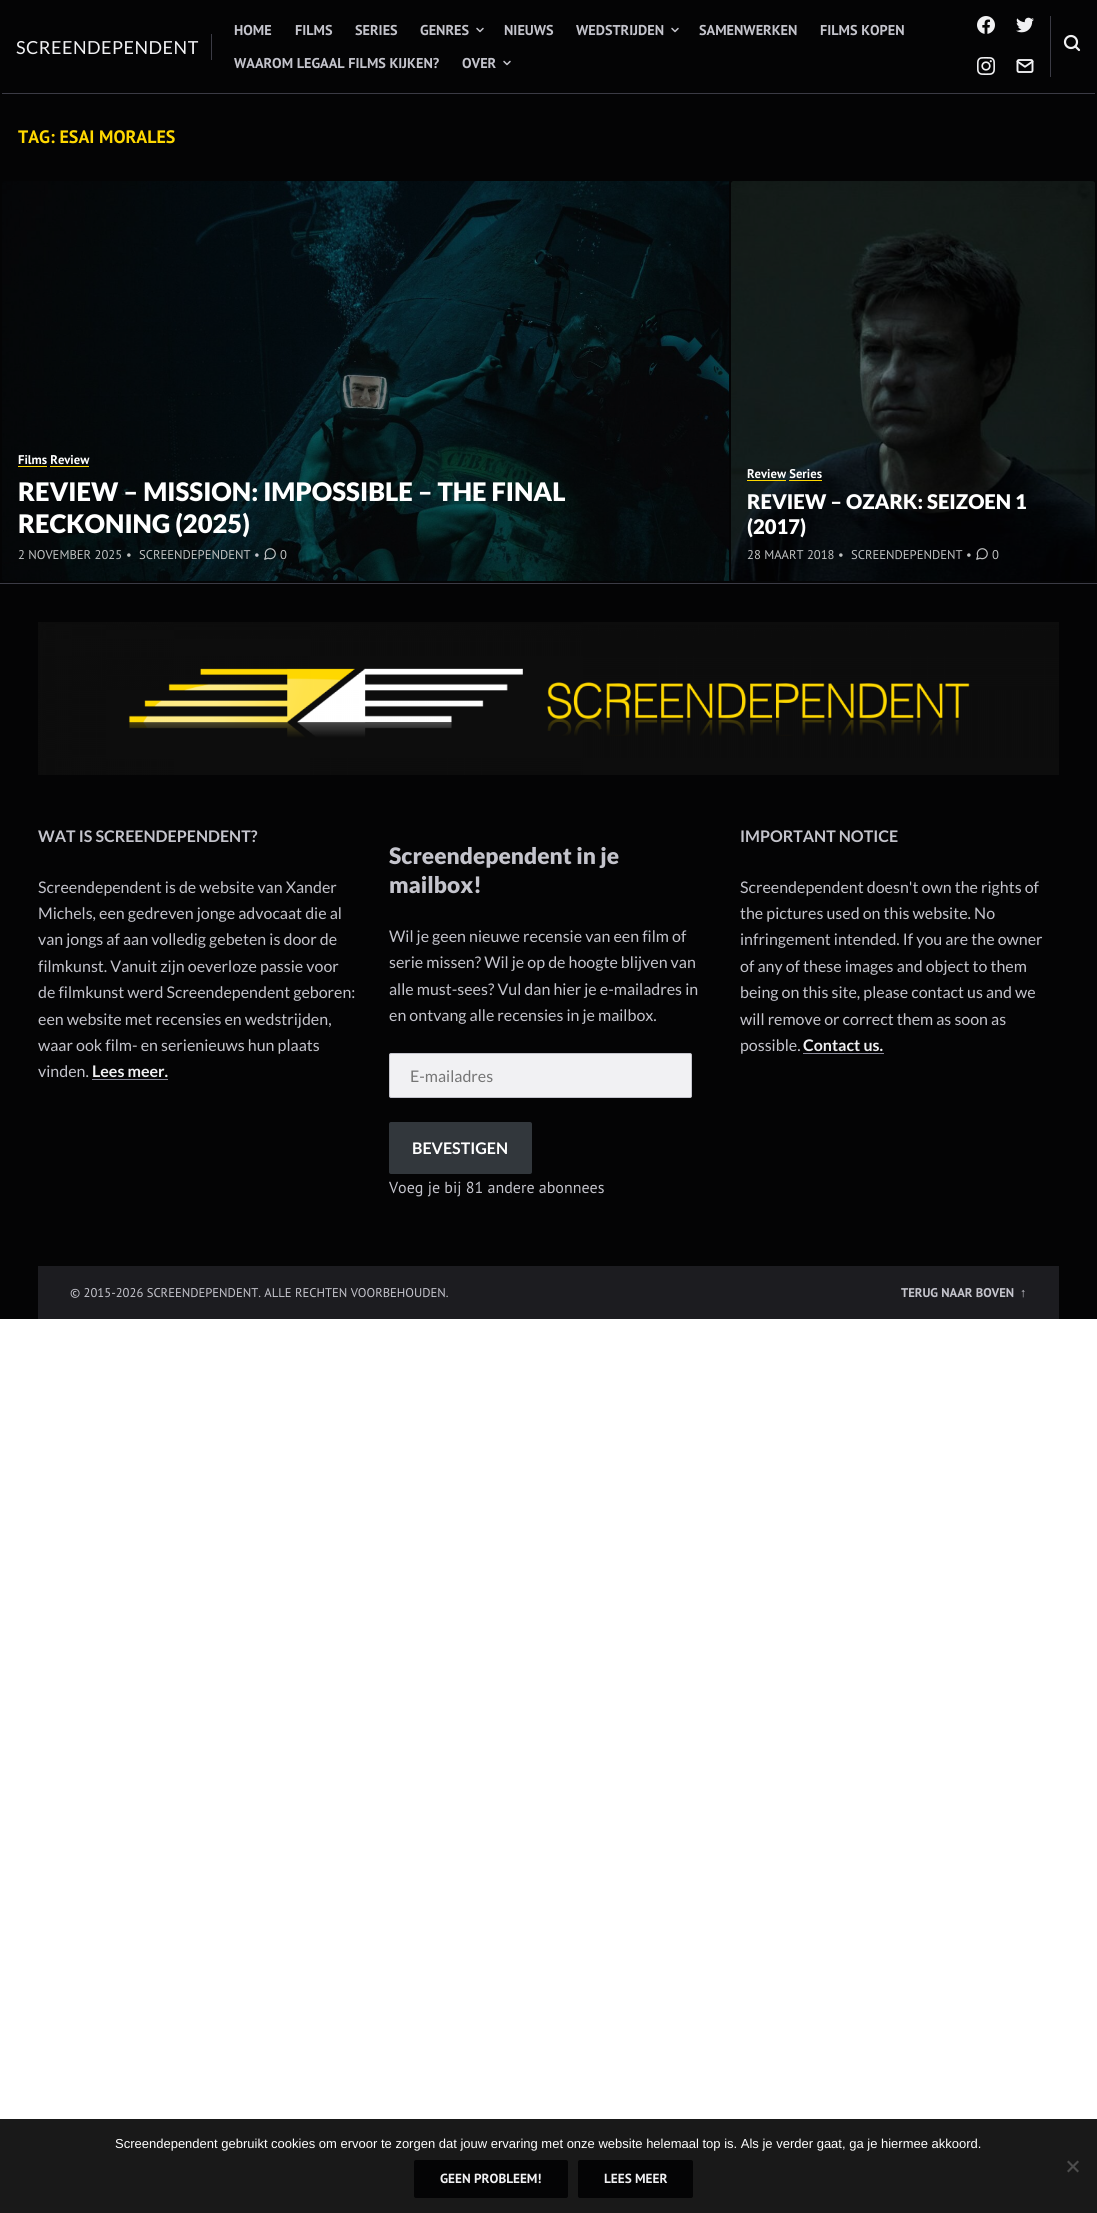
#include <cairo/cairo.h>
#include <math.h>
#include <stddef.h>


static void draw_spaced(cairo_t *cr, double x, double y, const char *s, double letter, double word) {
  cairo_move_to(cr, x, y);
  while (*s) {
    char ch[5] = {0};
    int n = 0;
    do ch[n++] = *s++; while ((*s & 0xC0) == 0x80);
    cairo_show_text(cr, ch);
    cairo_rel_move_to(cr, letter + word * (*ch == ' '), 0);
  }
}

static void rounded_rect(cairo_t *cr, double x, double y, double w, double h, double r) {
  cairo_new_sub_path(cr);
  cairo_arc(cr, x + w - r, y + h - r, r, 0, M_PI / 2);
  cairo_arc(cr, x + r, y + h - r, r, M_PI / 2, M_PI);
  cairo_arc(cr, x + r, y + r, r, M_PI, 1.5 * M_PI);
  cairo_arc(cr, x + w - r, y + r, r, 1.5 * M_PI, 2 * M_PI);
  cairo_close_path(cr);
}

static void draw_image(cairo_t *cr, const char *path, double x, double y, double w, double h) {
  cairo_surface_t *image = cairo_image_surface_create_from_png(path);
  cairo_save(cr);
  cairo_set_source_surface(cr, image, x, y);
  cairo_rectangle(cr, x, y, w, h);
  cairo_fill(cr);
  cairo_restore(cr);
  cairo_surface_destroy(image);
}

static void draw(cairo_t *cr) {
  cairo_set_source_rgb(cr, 1, 1, 1);
  cairo_paint(cr);
  cairo_set_source_rgb(cr, 4 / 255.0, 4 / 255.0, 5 / 255.0);
  cairo_rectangle(cr, 0, 0, 1097, 583);
  cairo_fill(cr);
  cairo_set_source_rgb(cr, 59 / 255.0, 59 / 255.0, 69 / 255.0);
  cairo_rectangle(cr, 211, 34, 1, 26);
  cairo_fill(cr);
  cairo_new_path(cr);
  cairo_move_to(cr, 477, 28.5);
  cairo_line_to(cr, 480, 31.5);
  cairo_line_to(cr, 483, 28.5);
  cairo_set_source_rgb(cr, 196 / 255.0, 196 / 255.0, 204 / 255.0);
  cairo_set_line_width(cr, 1.5);
  cairo_set_line_cap(cr, CAIRO_LINE_CAP_ROUND);
  cairo_set_line_join(cr, CAIRO_LINE_JOIN_ROUND);
  cairo_stroke(cr);
  cairo_new_path(cr);
  cairo_move_to(cr, 672, 28.5);
  cairo_line_to(cr, 675, 31.5);
  cairo_line_to(cr, 678, 28.5);
  cairo_stroke(cr);
  cairo_new_path(cr);
  cairo_move_to(cr, 504, 61.5);
  cairo_line_to(cr, 507, 64.5);
  cairo_line_to(cr, 510, 61.5);
  cairo_stroke(cr);
  cairo_set_source_rgb(cr, 59 / 255.0, 59 / 255.0, 69 / 255.0);
  cairo_rectangle(cr, 1050, 16, 1, 61);
  cairo_fill(cr);
  draw_image(cr, "images/1.png", 977, 16, 18, 18);
  draw_image(cr, "images/2.png", 1016, 17, 18, 16);
  draw_image(cr, "images/3.png", 977, 57, 18, 18);
  draw_image(cr, "images/4.png", 1016, 59, 18, 14);
  cairo_arc(cr, 1071, 42, 6, 0, 2 * M_PI);
  cairo_set_source_rgb(cr, 241 / 255.0, 241 / 255.0, 243 / 255.0);
  cairo_set_line_width(cr, 2.2);
  cairo_set_line_cap(cr, CAIRO_LINE_CAP_BUTT);
  cairo_set_line_join(cr, CAIRO_LINE_JOIN_MITER);
  cairo_stroke(cr);
  cairo_new_path(cr);
  cairo_move_to(cr, 1079, 50);
  cairo_line_to(cr, 1075.5, 46.5);
  cairo_set_line_cap(cr, CAIRO_LINE_CAP_ROUND);
  cairo_set_line_join(cr, CAIRO_LINE_JOIN_ROUND);
  cairo_stroke(cr);
  cairo_set_source_rgb(cr, 59 / 255.0, 59 / 255.0, 69 / 255.0);
  cairo_rectangle(cr, 2, 93, 1093, 1);
  cairo_fill(cr);
  draw_image(cr, "images/5.png", 2, 181, 728, 400);
  cairo_set_source_rgb(cr, 1, 216 / 255.0, 0);
  cairo_rectangle(cr, 18, 466, 29, 1);
  cairo_fill(cr);
  cairo_rectangle(cr, 50, 466, 39, 1);
  cairo_fill(cr);
  draw_image(cr, "images/6.png", 264, 548, 12, 12);
  rounded_rect(cr, 730, 180, 366, 402, 3);
  cairo_set_source_rgb(cr, 4 / 255.0, 4 / 255.0, 5 / 255.0);
  cairo_set_line_width(cr, 2);
  cairo_set_line_cap(cr, CAIRO_LINE_CAP_BUTT);
  cairo_set_line_join(cr, CAIRO_LINE_JOIN_MITER);
  cairo_stroke(cr);
  draw_image(cr, "images/7.png", 731, 181, 364, 400);
  cairo_set_source_rgb(cr, 1, 216 / 255.0, 0);
  cairo_rectangle(cr, 747, 480, 39, 1);
  cairo_fill(cr);
  cairo_rectangle(cr, 789, 480, 33, 1);
  cairo_fill(cr);
  draw_image(cr, "images/8.png", 976, 548, 12, 12);
  cairo_set_source_rgb(cr, 4 / 255.0, 4 / 255.0, 5 / 255.0);
  cairo_rectangle(cr, 0, 584, 1097, 735);
  cairo_fill(cr);
  cairo_set_source_rgb(cr, 59 / 255.0, 59 / 255.0, 69 / 255.0);
  cairo_rectangle(cr, 0, 583, 1097, 1);
  cairo_fill(cr);
  draw_image(cr, "images/9.png", 38, 622, 1021, 153);
  cairo_set_source_rgb(cr, 141 / 255.0, 141 / 255.0, 157 / 255.0);
  cairo_rectangle(cr, 92, 1079, 76, 1);
  cairo_fill(cr);
  cairo_set_source_rgb(cr, 241 / 255.0, 241 / 255.0, 243 / 255.0);
  rounded_rect(cr, 389.5, 1053.5, 302, 44, 1.5);
  cairo_fill_preserve(cr);
  cairo_set_source_rgb(cr, 196 / 255.0, 196 / 255.0, 204 / 255.0);
  cairo_set_line_width(cr, 1);
  cairo_stroke(cr);
  cairo_set_source_rgb(cr, 50 / 255.0, 55 / 255.0, 60 / 255.0);
  rounded_rect(cr, 389, 1122, 143, 52, 2);
  cairo_fill(cr);
  cairo_set_source_rgb(cr, 141 / 255.0, 141 / 255.0, 157 / 255.0);
  cairo_rectangle(cr, 803, 1053, 81, 1);
  cairo_fill(cr);
  cairo_set_source_rgb(cr, 28 / 255.0, 28 / 255.0, 32 / 255.0);
  cairo_rectangle(cr, 38, 1266, 1021, 53);
  cairo_fill(cr);
  cairo_set_source_rgb(cr, 25 / 255.0, 25 / 255.0, 25 / 255.0);
  cairo_rectangle(cr, 0, 2119, 1097, 94);
  cairo_fill(cr);
  cairo_set_source_rgb(cr, 77 / 255.0, 77 / 255.0, 77 / 255.0);
  cairo_new_path(cr);
  cairo_move_to(cr, 1077.5, 2160.5);
  cairo_line_to(cr, 1079, 2162);
  cairo_line_to(cr, 1068.5, 2172.5);
  cairo_line_to(cr, 1067, 2171);
  cairo_close_path(cr);
  cairo_fill(cr);
  cairo_new_path(cr);
  cairo_move_to(cr, 1067, 2162);
  cairo_line_to(cr, 1068.5, 2160.5);
  cairo_line_to(cr, 1079, 2171);
  cairo_line_to(cr, 1077.5, 2172.5);
  cairo_close_path(cr);
  cairo_fill(cr);
  cairo_set_source_rgb(cr, 4 / 255.0, 4 / 255.0, 5 / 255.0);
  rounded_rect(cr, 414.5, 2160.5, 153, 37, 1.5);
  cairo_fill_preserve(cr);
  cairo_stroke(cr);
  rounded_rect(cr, 578.5, 2160.5, 114, 37, 1.5);
  cairo_fill_preserve(cr);
  cairo_stroke(cr);
  cairo_select_font_face(cr, "Lato", CAIRO_FONT_SLANT_NORMAL, CAIRO_FONT_WEIGHT_NORMAL);
  cairo_set_font_size(cr, 18);
  cairo_set_source_rgb(cr, 241 / 255.0, 241 / 255.0, 243 / 255.0);
  draw_spaced(cr, 16, 54, "SCREENDEPENDENT", 0.5, 0);
  cairo_select_font_face(cr, "PT Sans", CAIRO_FONT_SLANT_NORMAL, CAIRO_FONT_WEIGHT_BOLD);
  cairo_set_font_size(cr, 14.25);
  cairo_set_source_rgb(cr, 196 / 255.0, 196 / 255.0, 204 / 255.0);
  cairo_move_to(cr, 234, 35);
  cairo_show_text(cr, "HOME");
  cairo_move_to(cr, 295, 35);
  cairo_show_text(cr, "FILMS");
  cairo_move_to(cr, 355, 35);
  cairo_show_text(cr, "SERIES");
  cairo_move_to(cr, 420, 35);
  cairo_show_text(cr, "GENRES");
  cairo_move_to(cr, 504, 35);
  cairo_show_text(cr, "NIEUWS");
  cairo_move_to(cr, 576, 35);
  cairo_show_text(cr, "WEDSTRIJDEN");
  cairo_move_to(cr, 699, 35);
  cairo_show_text(cr, "SAMENWERKEN");
  cairo_move_to(cr, 820, 35);
  cairo_show_text(cr, "FILMS KOPEN");
  cairo_move_to(cr, 234, 68);
  cairo_show_text(cr, "WAAROM LEGAAL FILMS KIJKEN?");
  cairo_move_to(cr, 462, 68);
  cairo_show_text(cr, "OVER");
  cairo_set_font_size(cr, 18);
  cairo_set_source_rgb(cr, 1, 216 / 255.0, 0);
  cairo_move_to(cr, 18, 143);
  cairo_show_text(cr, "TAG: ESAI MORALES");
  cairo_set_font_size(cr, 12.65);
  cairo_set_source_rgb(cr, 1, 1, 1);
  cairo_move_to(cr, 18, 464);
  cairo_show_text(cr, "Films Review");
  cairo_select_font_face(cr, "Lato Black", CAIRO_FONT_SLANT_NORMAL, CAIRO_FONT_WEIGHT_NORMAL);
  cairo_set_font_size(cr, 25.6);
  cairo_move_to(cr, 18, 501);
  cairo_show_text(cr, "REVIEW – MISSION: IMPOSSIBLE – THE FINAL");
  cairo_move_to(cr, 18, 533);
  cairo_show_text(cr, "RECKONING (2025)");
  cairo_select_font_face(cr, "PT Sans", CAIRO_FONT_SLANT_NORMAL, CAIRO_FONT_WEIGHT_NORMAL);
  cairo_set_font_size(cr, 12.65);
  cairo_set_source_rgb(cr, 192 / 255.0, 194 / 255.0, 194 / 255.0);
  cairo_move_to(cr, 18, 559);
  cairo_show_text(cr, "2 NOVEMBER 2025");
  cairo_move_to(cr, 126, 559);
  cairo_show_text(cr, "•");
  cairo_move_to(cr, 139, 559);
  cairo_show_text(cr, "SCREENDEPENDENT");
  cairo_set_source_rgb(cr, 196 / 255.0, 196 / 255.0, 204 / 255.0);
  cairo_move_to(cr, 254, 559);
  cairo_show_text(cr, "•");
  cairo_set_source_rgb(cr, 192 / 255.0, 194 / 255.0, 194 / 255.0);
  cairo_move_to(cr, 280, 559);
  cairo_show_text(cr, "0");
  cairo_select_font_face(cr, "PT Sans", CAIRO_FONT_SLANT_NORMAL, CAIRO_FONT_WEIGHT_BOLD);
  cairo_set_source_rgb(cr, 1, 1, 1);
  cairo_move_to(cr, 747, 478);
  cairo_show_text(cr, "Review Series");
  cairo_select_font_face(cr, "Lato Black", CAIRO_FONT_SLANT_NORMAL, CAIRO_FONT_WEIGHT_NORMAL);
  cairo_set_font_size(cr, 20.25);
  cairo_move_to(cr, 747, 509);
  cairo_show_text(cr, "REVIEW – OZARK: SEIZOEN 1");
  cairo_move_to(cr, 747, 534);
  cairo_show_text(cr, "(2017)");
  cairo_select_font_face(cr, "PT Sans", CAIRO_FONT_SLANT_NORMAL, CAIRO_FONT_WEIGHT_NORMAL);
  cairo_set_font_size(cr, 12.65);
  cairo_set_source_rgb(cr, 192 / 255.0, 194 / 255.0, 194 / 255.0);
  cairo_move_to(cr, 747, 559);
  cairo_show_text(cr, "28 MAART 2018");
  cairo_move_to(cr, 838, 559);
  cairo_show_text(cr, "•");
  cairo_move_to(cr, 851, 559);
  cairo_show_text(cr, "SCREENDEPENDENT");
  cairo_move_to(cr, 966, 559);
  cairo_show_text(cr, "•");
  cairo_move_to(cr, 992, 559);
  cairo_show_text(cr, "0");
  cairo_select_font_face(cr, "Lato", CAIRO_FONT_SLANT_NORMAL, CAIRO_FONT_WEIGHT_BOLD);
  cairo_set_font_size(cr, 16);
  cairo_set_source_rgb(cr, 196 / 255.0, 196 / 255.0, 204 / 255.0);
  cairo_move_to(cr, 38, 842);
  cairo_show_text(cr, "WAT IS SCREENDEPENDENT?");
  cairo_select_font_face(cr, "Lato", CAIRO_FONT_SLANT_NORMAL, CAIRO_FONT_WEIGHT_NORMAL);
  cairo_move_to(cr, 38, 893);
  cairo_show_text(cr, "Screendependent is de website van Xander");
  cairo_move_to(cr, 38, 919);
  cairo_show_text(cr, "Michels, een gedreven jonge advocaat die al");
  cairo_move_to(cr, 38, 945);
  cairo_show_text(cr, "van jongs af aan volledig gebeten is door de");
  cairo_move_to(cr, 38, 972);
  cairo_show_text(cr, "filmkunst. Vanuit zijn oeverloze passie voor");
  cairo_move_to(cr, 38, 998);
  cairo_show_text(cr, "de filmkunst werd Screendependent geboren:");
  cairo_move_to(cr, 38, 1025);
  cairo_show_text(cr, "een website met recensies en wedstrijden,");
  cairo_move_to(cr, 38, 1051);
  cairo_show_text(cr, "waar ook film- en serienieuws hun plaats");
  cairo_move_to(cr, 38, 1077);
  cairo_show_text(cr, "vinden.");
  cairo_select_font_face(cr, "Lato", CAIRO_FONT_SLANT_NORMAL, CAIRO_FONT_WEIGHT_BOLD);
  cairo_set_source_rgb(cr, 241 / 255.0, 241 / 255.0, 243 / 255.0);
  cairo_move_to(cr, 92, 1077);
  cairo_show_text(cr, "Lees meer.");
  cairo_select_font_face(cr, "Lato Black", CAIRO_FONT_SLANT_NORMAL, CAIRO_FONT_WEIGHT_NORMAL);
  cairo_set_font_size(cr, 22.75);
  cairo_set_source_rgb(cr, 196 / 255.0, 196 / 255.0, 204 / 255.0);
  cairo_move_to(cr, 389, 864);
  cairo_show_text(cr, "Screendependent in je");
  cairo_move_to(cr, 389, 893);
  cairo_show_text(cr, "mailbox!");
  cairo_select_font_face(cr, "Lato", CAIRO_FONT_SLANT_NORMAL, CAIRO_FONT_WEIGHT_NORMAL);
  cairo_set_font_size(cr, 16);
  cairo_move_to(cr, 389, 942);
  cairo_show_text(cr, "Wil je geen nieuwe recensie van een film of");
  cairo_move_to(cr, 389, 968);
  cairo_show_text(cr, "serie missen? Wil je op de hoogte blijven van");
  cairo_move_to(cr, 389, 995);
  cairo_show_text(cr, "alle must-sees? Vul dan hier je e-mailadres in");
  cairo_move_to(cr, 389, 1021);
  cairo_show_text(cr, "en ontvang alle recensies in je mailbox.");
  cairo_set_source_rgb(cr, 117 / 255.0, 117 / 255.0, 117 / 255.0);
  cairo_move_to(cr, 410, 1082);
  cairo_show_text(cr, "E-mailadres");
  cairo_select_font_face(cr, "Lato", CAIRO_FONT_SLANT_NORMAL, CAIRO_FONT_WEIGHT_BOLD);
  cairo_set_source_rgb(cr, 1, 1, 1);
  cairo_move_to(cr, 412, 1154);
  cairo_show_text(cr, "BEVESTIGEN");
  cairo_select_font_face(cr, "PT Sans", CAIRO_FONT_SLANT_NORMAL, CAIRO_FONT_WEIGHT_NORMAL);
  cairo_set_source_rgb(cr, 196 / 255.0, 196 / 255.0, 204 / 255.0);
  cairo_move_to(cr, 389, 1193);
  cairo_show_text(cr, "Voeg je bij 81 andere abonnees");
  cairo_select_font_face(cr, "Lato", CAIRO_FONT_SLANT_NORMAL, CAIRO_FONT_WEIGHT_BOLD);
  cairo_move_to(cr, 740, 842);
  cairo_show_text(cr, "IMPORTANT NOTICE");
  cairo_select_font_face(cr, "Lato", CAIRO_FONT_SLANT_NORMAL, CAIRO_FONT_WEIGHT_NORMAL);
  cairo_move_to(cr, 740, 893);
  cairo_show_text(cr, "Screendependent doesn't own the rights of");
  cairo_move_to(cr, 740, 919);
  cairo_show_text(cr, "the pictures used on this website. No");
  cairo_move_to(cr, 740, 945);
  cairo_show_text(cr, "infringement intended. If you are the owner");
  cairo_move_to(cr, 740, 972);
  cairo_show_text(cr, "of any of these images and object to them");
  cairo_move_to(cr, 740, 998);
  cairo_show_text(cr, "being on this site, please contact us and we");
  cairo_move_to(cr, 740, 1025);
  cairo_show_text(cr, "will remove or correct them as soon as");
  cairo_move_to(cr, 740, 1051);
  cairo_show_text(cr, "possible.");
  cairo_select_font_face(cr, "Lato", CAIRO_FONT_SLANT_NORMAL, CAIRO_FONT_WEIGHT_BOLD);
  cairo_set_source_rgb(cr, 241 / 255.0, 241 / 255.0, 243 / 255.0);
  cairo_move_to(cr, 803, 1051);
  cairo_show_text(cr, "Contact us.");
  cairo_select_font_face(cr, "PT Sans", CAIRO_FONT_SLANT_NORMAL, CAIRO_FONT_WEIGHT_NORMAL);
  cairo_set_font_size(cr, 12.65);
  cairo_set_source_rgb(cr, 196 / 255.0, 196 / 255.0, 204 / 255.0);
  cairo_move_to(cr, 70, 1297);
  cairo_show_text(cr, "© 2015-2026 SCREENDEPENDENT. ALLE RECHTEN VOORBEHOUDEN.");
  cairo_select_font_face(cr, "PT Sans", CAIRO_FONT_SLANT_NORMAL, CAIRO_FONT_WEIGHT_BOLD);
  cairo_move_to(cr, 901, 1297);
  cairo_show_text(cr, "TERUG NAAR BOVEN");
  cairo_select_font_face(cr, "Liberation Sans", CAIRO_FONT_SLANT_NORMAL, CAIRO_FONT_WEIGHT_BOLD);
  cairo_move_to(cr, 1020, 1297);
  cairo_show_text(cr, "↑");
  cairo_select_font_face(cr, "Liberation Sans", CAIRO_FONT_SLANT_NORMAL, CAIRO_FONT_WEIGHT_NORMAL);
  cairo_set_font_size(cr, 13);
  cairo_set_source_rgb(cr, 1, 1, 1);
  cairo_move_to(cr, 115, 2148);
  cairo_show_text(cr, "Screendependent gebruikt cookies om ervoor te zorgen dat jouw ervaring met onze website helemaal top is. Als je verder gaat, ga je hiermee akkoord.");
  cairo_select_font_face(cr, "PT Sans", CAIRO_FONT_SLANT_NORMAL, CAIRO_FONT_WEIGHT_BOLD);
  cairo_set_font_size(cr, 13.25);
  cairo_set_source_rgb(cr, 241 / 255.0, 241 / 255.0, 243 / 255.0);
  cairo_move_to(cr, 440, 2183);
  cairo_show_text(cr, "GEEN PROBLEEM!");
  cairo_move_to(cr, 604, 2183);
  cairo_show_text(cr, "LEES MEER");
}

int main(void) {
  cairo_surface_t *surface = cairo_image_surface_create(CAIRO_FORMAT_RGB24, 1097, 2213);
  cairo_t *cr = cairo_create(surface);
  cairo_font_options_t *options = cairo_font_options_create();
  cairo_font_options_set_hint_metrics(options, CAIRO_HINT_METRICS_OFF);
  cairo_font_options_set_hint_style(options, CAIRO_HINT_STYLE_NONE);
  cairo_set_font_options(cr, options);
  cairo_set_miter_limit(cr, 4);
  draw(cr);
  cairo_surface_write_to_png(surface, "out.png");
  cairo_font_options_destroy(options);
  cairo_destroy(cr);
  cairo_surface_destroy(surface);
  return 0;
}
